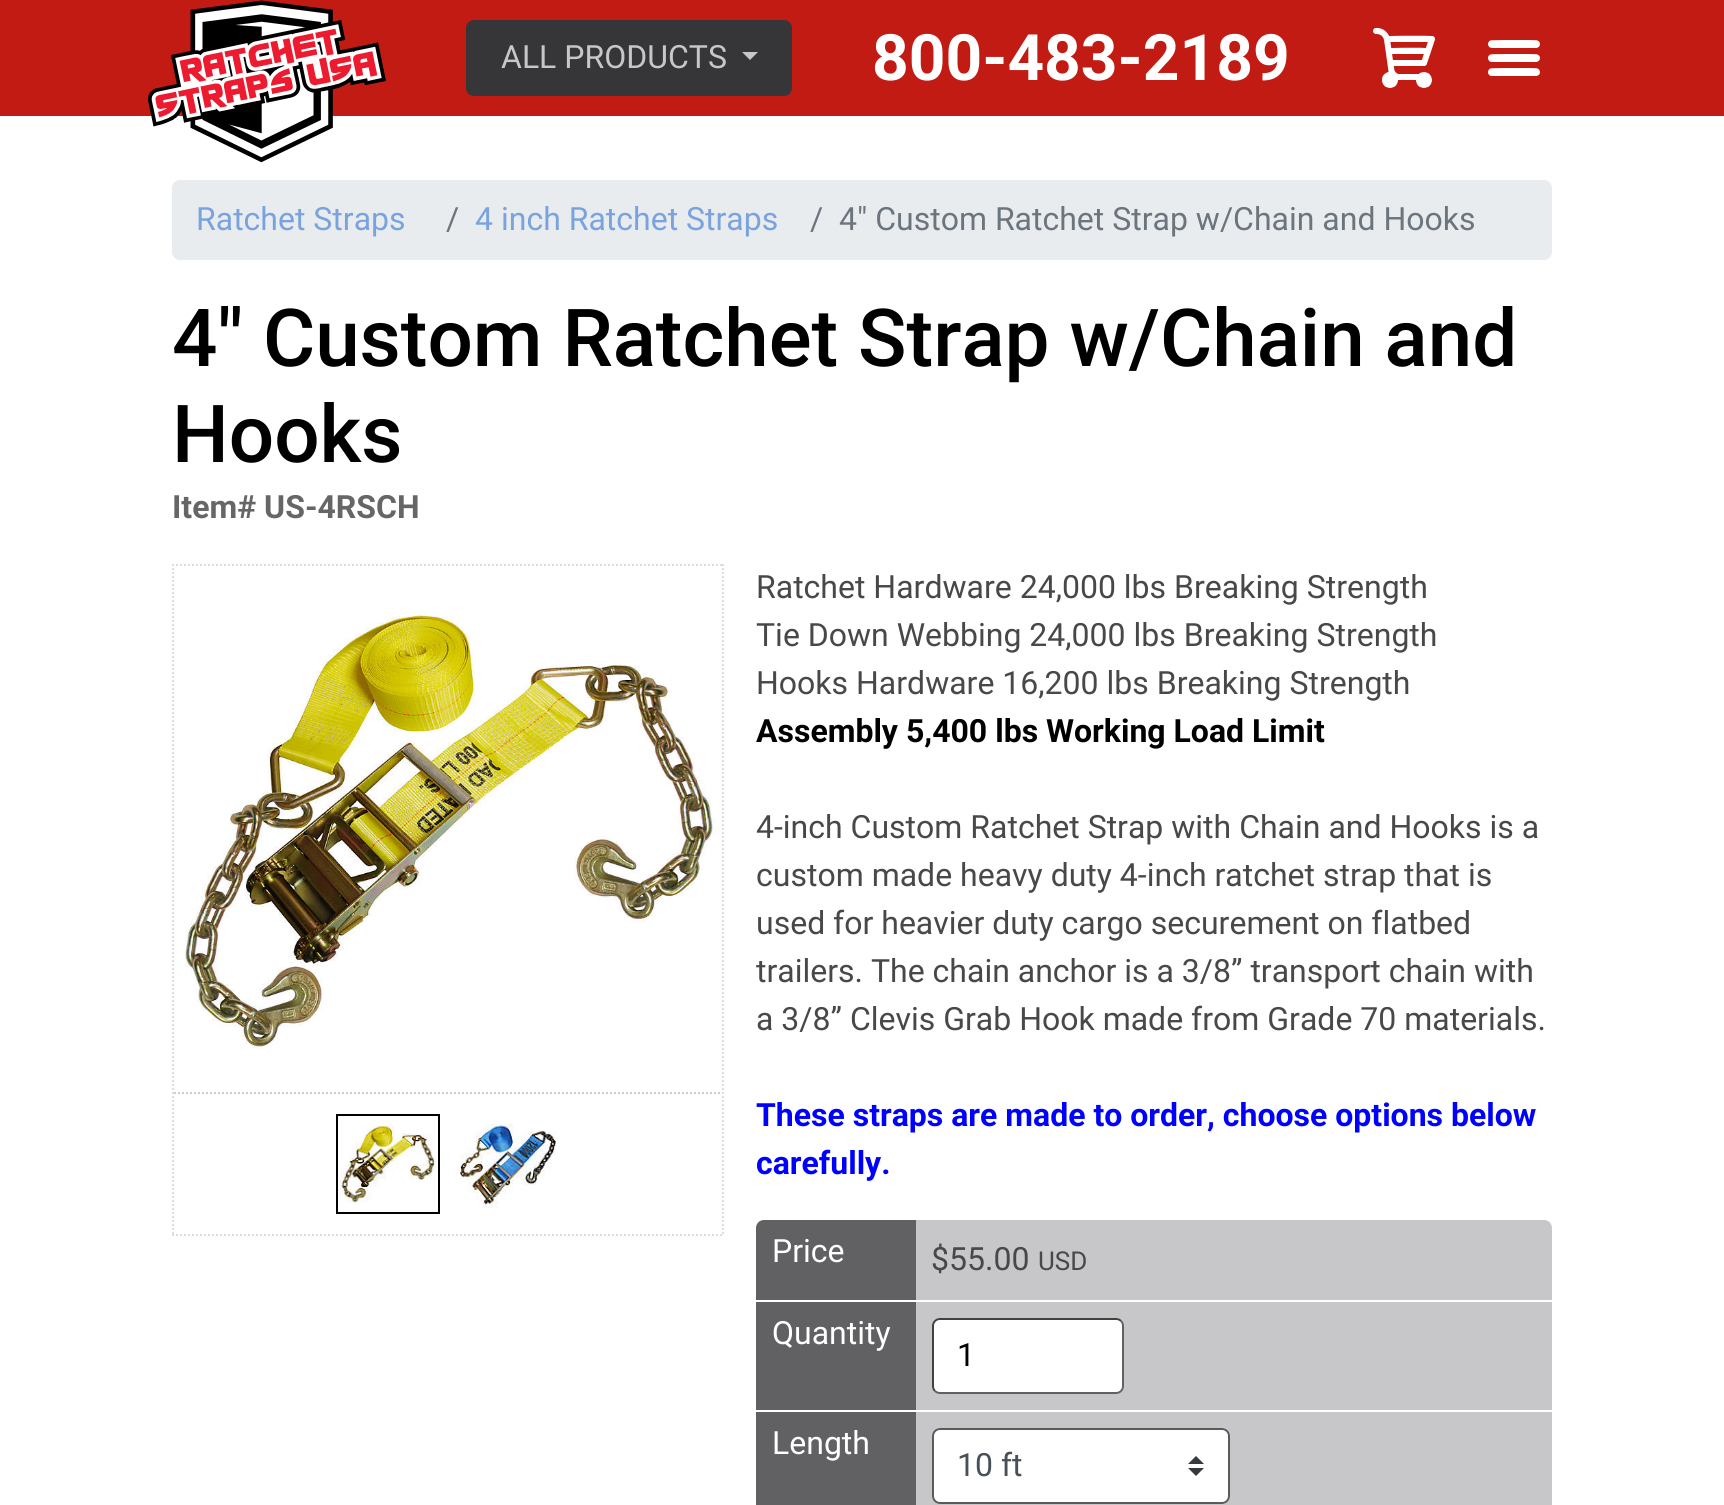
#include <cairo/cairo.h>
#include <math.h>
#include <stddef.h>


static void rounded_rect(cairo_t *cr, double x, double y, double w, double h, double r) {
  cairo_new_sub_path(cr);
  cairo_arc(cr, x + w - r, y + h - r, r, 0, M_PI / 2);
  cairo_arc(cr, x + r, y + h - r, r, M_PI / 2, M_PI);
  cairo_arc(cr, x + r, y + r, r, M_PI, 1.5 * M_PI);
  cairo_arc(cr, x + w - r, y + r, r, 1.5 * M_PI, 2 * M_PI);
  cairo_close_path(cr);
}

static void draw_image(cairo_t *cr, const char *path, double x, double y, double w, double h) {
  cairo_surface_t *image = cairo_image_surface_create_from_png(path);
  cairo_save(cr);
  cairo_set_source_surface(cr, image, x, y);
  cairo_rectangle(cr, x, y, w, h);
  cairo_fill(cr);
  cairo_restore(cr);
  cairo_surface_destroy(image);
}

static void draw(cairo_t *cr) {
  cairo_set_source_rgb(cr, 1, 1, 1);
  cairo_paint(cr);
  cairo_set_source_rgb(cr, 194 / 255.0, 27 / 255.0, 19 / 255.0);
  cairo_rectangle(cr, 0, 0, 1724, 116);
  cairo_fill(cr);
  draw_image(cr, "images/1.png", 148, 0, 238, 163);
  cairo_set_source_rgb(cr, 54 / 255.0, 54 / 255.0, 56 / 255.0);
  rounded_rect(cr, 467, 21, 324, 74, 7);
  cairo_fill_preserve(cr);
  cairo_stroke(cr);
  cairo_set_source_rgb(cr, 199 / 255.0, 199 / 255.0, 201 / 255.0);
  cairo_new_path(cr);
  cairo_move_to(cr, 742, 52);
  cairo_line_to(cr, 758, 52);
  cairo_line_to(cr, 750, 60);
  cairo_close_path(cr);
  cairo_fill(cr);
  draw_image(cr, "images/2.png", 1373, 28, 62, 60);
  draw_image(cr, "images/3.png", 1488, 40, 52, 36);
  cairo_set_source_rgb(cr, 233 / 255.0, 236 / 255.0, 239 / 255.0);
  rounded_rect(cr, 172, 180, 1380, 80, 8);
  cairo_fill(cr);
  cairo_new_path(cr);
  cairo_move_to(cr, 172, 565);
  cairo_line_to(cr, 724, 565);
  cairo_set_source_rgb(cr, 221 / 255.0, 221 / 255.0, 221 / 255.0);
  cairo_set_dash(cr, (double[]){2, 2}, 2, 0);
  cairo_stroke(cr);
  cairo_new_path(cr);
  cairo_move_to(cr, 723, 564);
  cairo_line_to(cr, 723, 1236);
  cairo_stroke(cr);
  cairo_new_path(cr);
  cairo_move_to(cr, 172, 1235);
  cairo_line_to(cr, 724, 1235);
  cairo_stroke(cr);
  cairo_new_path(cr);
  cairo_move_to(cr, 173, 564);
  cairo_line_to(cr, 173, 1236);
  cairo_stroke(cr);
  draw_image(cr, "images/4.png", 185, 612, 532, 437);
  cairo_new_path(cr);
  cairo_move_to(cr, 174, 1093);
  cairo_line_to(cr, 722, 1093);
  cairo_set_source_rgb(cr, 204 / 255.0, 204 / 255.0, 204 / 255.0);
  cairo_stroke(cr);
  cairo_rectangle(cr, 337, 1115, 102, 98);
  cairo_set_source_rgb(cr, 0, 0, 0);
  cairo_set_dash(cr, NULL, 0, 0);
  cairo_stroke(cr);
  draw_image(cr, "images/5.png", 340, 1125, 96, 78);
  draw_image(cr, "images/6.png", 460, 1123, 96, 85);
  cairo_set_source_rgb(cr, 97 / 255.0, 97 / 255.0, 100 / 255.0);
  cairo_new_path(cr);
  cairo_move_to(cr, 764, 1220);
  cairo_line_to(cr, 916, 1220);
  cairo_line_to(cr, 916, 1300);
  cairo_line_to(cr, 756, 1300);
  cairo_line_to(cr, 756, 1228);
  cairo_curve_to(cr, 756, 1223.5, 759.5, 1220, 764, 1220);
  cairo_close_path(cr);
  cairo_fill(cr);
  cairo_set_source_rgb(cr, 199 / 255.0, 199 / 255.0, 201 / 255.0);
  cairo_new_path(cr);
  cairo_move_to(cr, 916, 1220);
  cairo_line_to(cr, 1544, 1220);
  cairo_curve_to(cr, 1548.5, 1220, 1552, 1223.5, 1552, 1228);
  cairo_line_to(cr, 1552, 1300);
  cairo_line_to(cr, 916, 1300);
  cairo_close_path(cr);
  cairo_fill(cr);
  cairo_set_source_rgb(cr, 97 / 255.0, 97 / 255.0, 100 / 255.0);
  cairo_rectangle(cr, 756, 1302, 160, 108);
  cairo_fill(cr);
  cairo_set_source_rgb(cr, 199 / 255.0, 199 / 255.0, 201 / 255.0);
  cairo_rectangle(cr, 916, 1302, 636, 108);
  cairo_fill(cr);
  cairo_set_source_rgb(cr, 1, 1, 1);
  rounded_rect(cr, 932, 1318, 192, 76, 8);
  cairo_fill(cr);
  cairo_new_path(cr);
  cairo_move_to(cr, 1121, 1321);
  cairo_curve_to(cr, 1122.5, 1322.5, 1123, 1324, 1123, 1326);
  cairo_line_to(cr, 1123, 1386);
  cairo_curve_to(cr, 1123, 1388, 1122.5, 1389.5, 1121, 1391);
  cairo_curve_to(cr, 1119.5, 1392.5, 1118, 1393, 1116, 1393);
  cairo_line_to(cr, 940, 1393);
  cairo_curve_to(cr, 938, 1393, 936.5, 1392.5, 935, 1391);
  cairo_set_source_rgb(cr, 97 / 255.0, 97 / 255.0, 100 / 255.0);
  cairo_stroke(cr);
  cairo_new_path(cr);
  cairo_move_to(cr, 935, 1391);
  cairo_curve_to(cr, 933.5, 1389.5, 933, 1388, 933, 1386);
  cairo_line_to(cr, 933, 1326);
  cairo_curve_to(cr, 933, 1324, 933.5, 1322.5, 935, 1321);
  cairo_curve_to(cr, 936.5, 1319.5, 938, 1319, 940, 1319);
  cairo_line_to(cr, 1116, 1319);
  cairo_curve_to(cr, 1118, 1319, 1119.5, 1319.5, 1121, 1321);
  cairo_set_source_rgb(cr, 65 / 255.0, 65 / 255.0, 67 / 255.0);
  cairo_stroke(cr);
  cairo_set_source_rgb(cr, 97 / 255.0, 97 / 255.0, 100 / 255.0);
  cairo_rectangle(cr, 756, 1412, 160, 93);
  cairo_fill(cr);
  cairo_set_source_rgb(cr, 199 / 255.0, 199 / 255.0, 201 / 255.0);
  cairo_rectangle(cr, 916, 1412, 636, 93);
  cairo_fill(cr);
  cairo_set_source_rgb(cr, 1, 1, 1);
  rounded_rect(cr, 932, 1428, 298, 76, 8);
  cairo_fill(cr);
  cairo_set_source_rgb(cr, 52 / 255.0, 58 / 255.0, 64 / 255.0);
  cairo_new_path(cr);
  cairo_move_to(cr, 1196, 1456);
  cairo_line_to(cr, 1188, 1464);
  cairo_line_to(cr, 1204, 1464);
  cairo_close_path(cr);
  cairo_move_to(cr, 1196, 1476);
  cairo_line_to(cr, 1188, 1468);
  cairo_line_to(cr, 1204, 1468);
  cairo_close_path(cr);
  cairo_fill(cr);
  rounded_rect(cr, 933, 1429, 296, 74, 7);
  cairo_set_source_rgb(cr, 90 / 255.0, 90 / 255.0, 93 / 255.0);
  cairo_stroke(cr);
  cairo_select_font_face(cr, "Roboto", CAIRO_FONT_SLANT_NORMAL, CAIRO_FONT_WEIGHT_NORMAL);
  cairo_set_font_size(cr, 32);
  cairo_set_source_rgb(cr, 199 / 255.0, 199 / 255.0, 201 / 255.0);
  cairo_move_to(cr, 501, 68);
  cairo_show_text(cr, "ALL PRODUCTS");
  cairo_select_font_face(cr, "Roboto", CAIRO_FONT_SLANT_NORMAL, CAIRO_FONT_WEIGHT_BOLD);
  cairo_set_font_size(cr, 64);
  cairo_set_source_rgb(cr, 1, 1, 1);
  cairo_move_to(cr, 872, 80);
  cairo_show_text(cr, "800-483-2189");
  cairo_select_font_face(cr, "Roboto", CAIRO_FONT_SLANT_NORMAL, CAIRO_FONT_WEIGHT_NORMAL);
  cairo_set_font_size(cr, 32);
  cairo_set_source_rgb(cr, 122 / 255.0, 163 / 255.0, 221 / 255.0);
  cairo_move_to(cr, 196, 230);
  cairo_show_text(cr, "Ratchet Straps");
  cairo_set_source_rgb(cr, 108 / 255.0, 117 / 255.0, 125 / 255.0);
  cairo_move_to(cr, 446, 230);
  cairo_show_text(cr, "/");
  cairo_set_source_rgb(cr, 122 / 255.0, 163 / 255.0, 221 / 255.0);
  cairo_move_to(cr, 475, 230);
  cairo_show_text(cr, "4 inch Ratchet Straps");
  cairo_set_source_rgb(cr, 108 / 255.0, 117 / 255.0, 125 / 255.0);
  cairo_move_to(cr, 810, 230);
  cairo_show_text(cr, "/");
  cairo_move_to(cr, 839, 230);
  cairo_show_text(cr, "4\" Custom Ratchet Strap w/Chain and Hooks");
  cairo_select_font_face(cr, "Roboto Medium", CAIRO_FONT_SLANT_NORMAL, CAIRO_FONT_WEIGHT_NORMAL);
  cairo_set_font_size(cr, 80);
  cairo_set_source_rgb(cr, 0, 0, 0);
  cairo_move_to(cr, 172, 366);
  cairo_show_text(cr, "4\" Custom Ratchet Strap w/Chain and");
  cairo_move_to(cr, 172, 462);
  cairo_show_text(cr, "Hooks");
  cairo_select_font_face(cr, "Roboto", CAIRO_FONT_SLANT_NORMAL, CAIRO_FONT_WEIGHT_BOLD);
  cairo_set_font_size(cr, 32);
  cairo_set_source_rgb(cr, 102 / 255.0, 102 / 255.0, 102 / 255.0);
  cairo_move_to(cr, 172, 518);
  cairo_show_text(cr, "Item# US-4RSCH");
  cairo_select_font_face(cr, "Roboto", CAIRO_FONT_SLANT_NORMAL, CAIRO_FONT_WEIGHT_NORMAL);
  cairo_set_source_rgb(cr, 72 / 255.0, 72 / 255.0, 74 / 255.0);
  cairo_move_to(cr, 756, 598);
  cairo_show_text(cr, "Ratchet Hardware 24,000 lbs Breaking Strength");
  cairo_move_to(cr, 756, 646);
  cairo_show_text(cr, "Tie Down Webbing 24,000 lbs Breaking Strength");
  cairo_move_to(cr, 756, 694);
  cairo_show_text(cr, "Hooks Hardware 16,200 lbs Breaking Strength");
  cairo_select_font_face(cr, "Roboto", CAIRO_FONT_SLANT_NORMAL, CAIRO_FONT_WEIGHT_BOLD);
  cairo_set_source_rgb(cr, 0, 0, 0);
  cairo_move_to(cr, 756, 742);
  cairo_show_text(cr, "Assembly 5,400 lbs Working Load Limit");
  cairo_select_font_face(cr, "Roboto", CAIRO_FONT_SLANT_NORMAL, CAIRO_FONT_WEIGHT_NORMAL);
  cairo_set_source_rgb(cr, 72 / 255.0, 72 / 255.0, 74 / 255.0);
  cairo_move_to(cr, 756, 838);
  cairo_show_text(cr, "4-inch Custom Ratchet Strap with Chain and Hooks is a");
  cairo_move_to(cr, 756, 886);
  cairo_show_text(cr, "custom made heavy duty 4-inch ratchet strap that is");
  cairo_move_to(cr, 756, 934);
  cairo_show_text(cr, "used for heavier duty cargo securement on flatbed");
  cairo_move_to(cr, 756, 982);
  cairo_show_text(cr, "trailers. The chain anchor is a 3/8” transport chain with");
  cairo_move_to(cr, 756, 1030);
  cairo_show_text(cr, "a 3/8” Clevis Grab Hook made from Grade 70 materials.");
  cairo_select_font_face(cr, "Roboto", CAIRO_FONT_SLANT_NORMAL, CAIRO_FONT_WEIGHT_BOLD);
  cairo_set_source_rgb(cr, 0, 0, 1);
  cairo_move_to(cr, 756, 1126);
  cairo_show_text(cr, "These straps are made to order, choose options below");
  cairo_move_to(cr, 756, 1174);
  cairo_show_text(cr, "carefully.");
  cairo_select_font_face(cr, "Roboto", CAIRO_FONT_SLANT_NORMAL, CAIRO_FONT_WEIGHT_NORMAL);
  cairo_set_source_rgb(cr, 1, 1, 1);
  cairo_move_to(cr, 772, 1262);
  cairo_show_text(cr, "Price");
  cairo_set_source_rgb(cr, 72 / 255.0, 72 / 255.0, 74 / 255.0);
  cairo_move_to(cr, 931, 1270);
  cairo_show_text(cr, "$55.00");
  cairo_set_font_size(cr, 26);
  cairo_move_to(cr, 1038, 1270);
  cairo_show_text(cr, "USD");
  cairo_set_font_size(cr, 32);
  cairo_set_source_rgb(cr, 1, 1, 1);
  cairo_move_to(cr, 772, 1344);
  cairo_show_text(cr, "Quantity");
  cairo_set_source_rgb(cr, 0, 0, 0);
  cairo_move_to(cr, 957, 1366);
  cairo_show_text(cr, "1");
  cairo_set_source_rgb(cr, 1, 1, 1);
  cairo_move_to(cr, 772, 1454);
  cairo_show_text(cr, "Length");
  cairo_set_source_rgb(cr, 73 / 255.0, 80 / 255.0, 87 / 255.0);
  cairo_move_to(cr, 957, 1476);
  cairo_show_text(cr, "10 ft");
}

int main(void) {
  cairo_surface_t *surface = cairo_image_surface_create(CAIRO_FORMAT_RGB24, 1724, 1505);
  cairo_t *cr = cairo_create(surface);
  cairo_font_options_t *options = cairo_font_options_create();
  cairo_font_options_set_hint_metrics(options, CAIRO_HINT_METRICS_OFF);
  cairo_font_options_set_hint_style(options, CAIRO_HINT_STYLE_NONE);
  cairo_set_font_options(cr, options);
  cairo_set_miter_limit(cr, 4);
  draw(cr);
  cairo_surface_write_to_png(surface, "out.png");
  cairo_font_options_destroy(options);
  cairo_destroy(cr);
  cairo_surface_destroy(surface);
  return 0;
}
